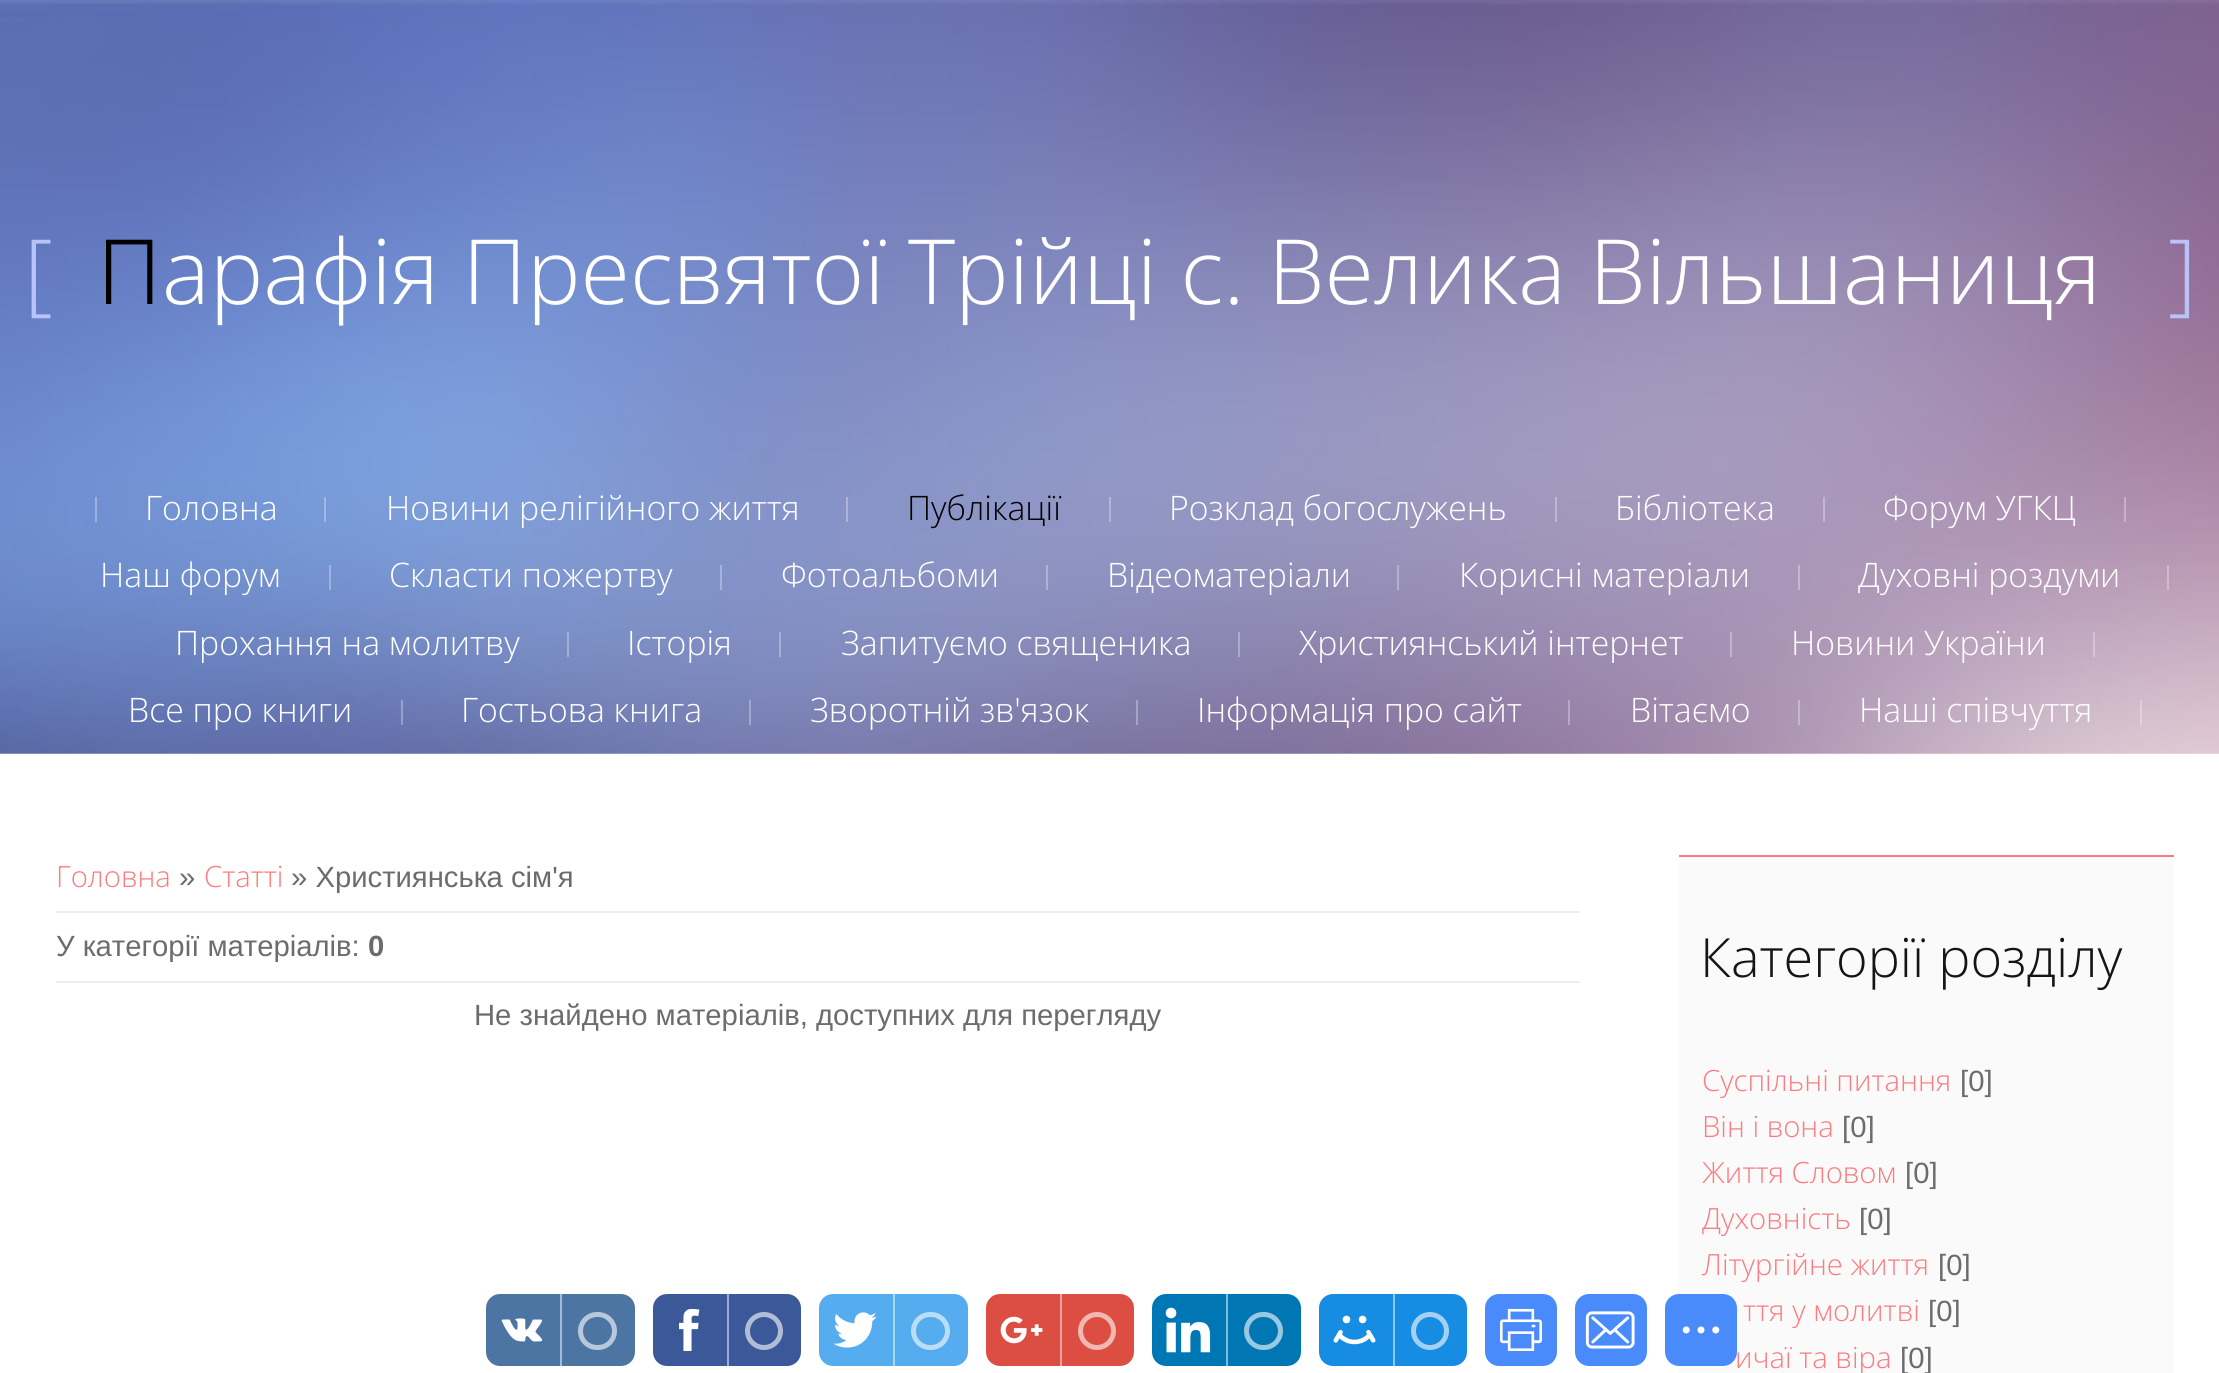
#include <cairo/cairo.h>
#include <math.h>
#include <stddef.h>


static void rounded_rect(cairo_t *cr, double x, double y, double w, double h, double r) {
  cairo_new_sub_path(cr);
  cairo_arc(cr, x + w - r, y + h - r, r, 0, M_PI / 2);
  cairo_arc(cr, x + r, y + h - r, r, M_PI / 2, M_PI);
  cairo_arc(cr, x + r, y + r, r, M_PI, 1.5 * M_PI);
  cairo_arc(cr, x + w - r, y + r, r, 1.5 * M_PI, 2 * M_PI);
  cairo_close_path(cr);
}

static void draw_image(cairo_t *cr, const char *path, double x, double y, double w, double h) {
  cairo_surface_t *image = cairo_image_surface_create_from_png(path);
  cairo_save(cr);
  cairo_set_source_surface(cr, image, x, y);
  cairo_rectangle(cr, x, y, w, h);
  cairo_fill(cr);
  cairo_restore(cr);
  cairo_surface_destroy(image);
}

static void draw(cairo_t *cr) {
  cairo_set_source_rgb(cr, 1, 1, 1);
  cairo_paint(cr);
  draw_image(cr, "images/1.png", 0, 0, 2219, 754);
  cairo_set_source_rgb(cr, 156 / 255.0, 177 / 255.0, 223 / 255.0);
  cairo_rectangle(cr, 95, 497, 2, 25);
  cairo_fill(cr);
  cairo_set_source_rgb(cr, 161 / 255.0, 184 / 255.0, 228 / 255.0);
  cairo_rectangle(cr, 324, 497, 2, 25);
  cairo_fill(cr);
  cairo_set_source_rgb(cr, 172 / 255.0, 180 / 255.0, 216 / 255.0);
  cairo_rectangle(cr, 846, 497, 2, 25);
  cairo_fill(cr);
  cairo_set_source_rgb(cr, 177 / 255.0, 182 / 255.0, 214 / 255.0);
  cairo_rectangle(cr, 1109, 497, 2, 25);
  cairo_fill(cr);
  cairo_set_source_rgb(cr, 189 / 255.0, 183 / 255.0, 208 / 255.0);
  cairo_rectangle(cr, 1555, 497, 2, 25);
  cairo_fill(cr);
  cairo_set_source_rgb(cr, 194 / 255.0, 183 / 255.0, 206 / 255.0);
  cairo_rectangle(cr, 1823, 497, 2, 25);
  cairo_fill(cr);
  cairo_set_source_rgba(cr, 1, 1, 1, 0.3);
  cairo_rectangle(cr, 2124, 497, 2, 25);
  cairo_fill(cr);
  cairo_rectangle(cr, 329, 565, 2, 25);
  cairo_fill(cr);
  cairo_rectangle(cr, 720, 565, 2, 25);
  cairo_fill(cr);
  cairo_rectangle(cr, 1046, 565, 2, 25);
  cairo_fill(cr);
  cairo_rectangle(cr, 1397, 565, 2, 25);
  cairo_fill(cr);
  cairo_set_source_rgb(cr, 195 / 255.0, 182 / 255.0, 205 / 255.0);
  cairo_rectangle(cr, 1798, 565, 2, 25);
  cairo_fill(cr);
  cairo_set_source_rgba(cr, 1, 1, 1, 0.3);
  cairo_rectangle(cr, 2167, 565, 2, 25);
  cairo_fill(cr);
  cairo_rectangle(cr, 567, 632, 2, 25);
  cairo_fill(cr);
  cairo_rectangle(cr, 779, 632, 2, 25);
  cairo_fill(cr);
  cairo_rectangle(cr, 1238, 632, 2, 25);
  cairo_fill(cr);
  cairo_set_source_rgb(cr, 192 / 255.0, 179 / 255.0, 203 / 255.0);
  cairo_rectangle(cr, 1730, 632, 2, 25);
  cairo_fill(cr);
  cairo_set_source_rgba(cr, 1, 1, 1, 0.3);
  cairo_rectangle(cr, 2093, 632, 2, 25);
  cairo_fill(cr);
  cairo_rectangle(cr, 401, 700, 2, 25);
  cairo_fill(cr);
  cairo_rectangle(cr, 749, 700, 2, 25);
  cairo_fill(cr);
  cairo_rectangle(cr, 1136, 700, 2, 25);
  cairo_fill(cr);
  cairo_rectangle(cr, 1568, 700, 2, 25);
  cairo_fill(cr);
  cairo_set_source_rgb(cr, 199 / 255.0, 183 / 255.0, 203 / 255.0);
  cairo_rectangle(cr, 1798, 700, 2, 25);
  cairo_fill(cr);
  cairo_set_source_rgba(cr, 1, 1, 1, 0.3);
  cairo_rectangle(cr, 2140, 700, 2, 25);
  cairo_fill(cr);
  cairo_set_source_rgb(cr, 237 / 255.0, 237 / 255.0, 237 / 255.0);
  cairo_rectangle(cr, 56, 911, 1524, 2);
  cairo_fill(cr);
  cairo_rectangle(cr, 56, 981, 1524, 2);
  cairo_fill(cr);
  cairo_set_source_rgb(cr, 250 / 255.0, 250 / 255.0, 250 / 255.0);
  cairo_rectangle(cr, 1679, 857, 495, 516);
  cairo_fill(cr);
  cairo_set_source_rgb(cr, 253 / 255.0, 122 / 255.0, 128 / 255.0);
  cairo_rectangle(cr, 1679, 855, 495, 2);
  cairo_fill(cr);
  cairo_set_source_rgb(cr, 77 / 255.0, 117 / 255.0, 163 / 255.0);
  rounded_rect(cr, 486, 1294, 149, 72, 14);
  cairo_fill(cr);
  draw_image(cr, "images/2.png", 501, 1318, 42, 24);
  cairo_set_source_rgb(cr, 166 / 255.0, 186 / 255.0, 209 / 255.0);
  cairo_rectangle(cr, 560, 1294, 2, 72);
  cairo_fill(cr);
  rounded_rect(cr, 580.5, 1314.5, 34, 33, 16.5);
  cairo_set_source_rgb(cr, 184 / 255.0, 200 / 255.0, 218 / 255.0);
  cairo_set_line_width(cr, 5);
  cairo_stroke(cr);
  cairo_set_source_rgb(cr, 59 / 255.0, 89 / 255.0, 152 / 255.0);
  rounded_rect(cr, 653, 1294, 148, 72, 14);
  cairo_fill(cr);
  draw_image(cr, "images/3.png", 679, 1308, 21, 43);
  cairo_set_source_rgb(cr, 157 / 255.0, 172 / 255.0, 204 / 255.0);
  cairo_rectangle(cr, 727, 1294, 2, 72);
  cairo_fill(cr);
  cairo_arc(cr, 764, 1331, 16.5, 0, 2 * M_PI);
  cairo_set_source_rgb(cr, 177 / 255.0, 189 / 255.0, 214 / 255.0);
  cairo_stroke(cr);
  cairo_set_source_rgb(cr, 85 / 255.0, 172 / 255.0, 238 / 255.0);
  rounded_rect(cr, 819, 1294, 149, 72, 14);
  cairo_fill(cr);
  draw_image(cr, "images/4.png", 833, 1312, 44, 36);
  cairo_set_source_rgb(cr, 170 / 255.0, 214 / 255.0, 247 / 255.0);
  cairo_rectangle(cr, 893, 1294, 2, 72);
  cairo_fill(cr);
  rounded_rect(cr, 913.5, 1314.5, 34, 33, 16.5);
  cairo_set_source_rgb(cr, 187 / 255.0, 222 / 255.0, 248 / 255.0);
  cairo_stroke(cr);
  cairo_set_source_rgb(cr, 220 / 255.0, 78 / 255.0, 65 / 255.0);
  rounded_rect(cr, 986, 1294, 148, 72, 14);
  cairo_fill(cr);
  draw_image(cr, "images/5.png", 1000, 1316, 43, 28);
  cairo_set_source_rgb(cr, 238 / 255.0, 167 / 255.0, 160 / 255.0);
  cairo_rectangle(cr, 1060, 1294, 2, 72);
  cairo_fill(cr);
  cairo_arc(cr, 1097, 1331, 16.5, 0, 2 * M_PI);
  cairo_set_source_rgb(cr, 241 / 255.0, 184 / 255.0, 179 / 255.0);
  cairo_stroke(cr);
  cairo_set_source_rgb(cr, 0, 119 / 255.0, 181 / 255.0);
  rounded_rect(cr, 1152, 1294, 149, 72, 14);
  cairo_fill(cr);
  draw_image(cr, "images/6.png", 1165, 1307, 46, 46);
  cairo_set_source_rgb(cr, 128 / 255.0, 187 / 255.0, 218 / 255.0);
  cairo_rectangle(cr, 1226, 1294, 2, 72);
  cairo_fill(cr);
  rounded_rect(cr, 1246.5, 1314.5, 34, 33, 16.5);
  cairo_set_source_rgb(cr, 153 / 255.0, 201 / 255.0, 225 / 255.0);
  cairo_stroke(cr);
  cairo_set_source_rgb(cr, 22 / 255.0, 141 / 255.0, 226 / 255.0);
  rounded_rect(cr, 1319, 1294, 148, 72, 14);
  cairo_fill(cr);
  draw_image(cr, "images/7.png", 1333, 1315, 43, 30);
  cairo_set_source_rgb(cr, 139 / 255.0, 198 / 255.0, 241 / 255.0);
  cairo_rectangle(cr, 1393, 1294, 2, 72);
  cairo_fill(cr);
  cairo_arc(cr, 1430, 1331, 16.5, 0, 2 * M_PI);
  cairo_set_source_rgb(cr, 162 / 255.0, 209 / 255.0, 243 / 255.0);
  cairo_stroke(cr);
  cairo_set_source_rgb(cr, 73 / 255.0, 139 / 255.0, 250 / 255.0);
  rounded_rect(cr, 1485, 1294, 72, 72, 14);
  cairo_fill(cr);
  draw_image(cr, "images/8.png", 1499, 1308, 44, 43);
  rounded_rect(cr, 1575, 1294, 72, 72, 14);
  cairo_fill(cr);
  draw_image(cr, "images/9.png", 1585, 1311, 50, 38);
  rounded_rect(cr, 1665, 1294, 72, 72, 14);
  cairo_fill(cr);
  draw_image(cr, "images/10.png", 1682, 1326, 38, 8);
  cairo_select_font_face(cr, "Open Sans Light", CAIRO_FONT_SLANT_NORMAL, CAIRO_FONT_WEIGHT_NORMAL);
  cairo_set_font_size(cr, 90);
  cairo_set_source_rgb(cr, 186 / 255.0, 195 / 255.0, 247 / 255.0);
  cairo_move_to(cr, 24, 304);
  cairo_show_text(cr, "[");
  cairo_select_font_face(cr, "Noto Sans Light", CAIRO_FONT_SLANT_NORMAL, CAIRO_FONT_WEIGHT_NORMAL);
  cairo_set_source_rgb(cr, 0, 0, 0);
  cairo_move_to(cr, 97, 304);
  cairo_show_text(cr, "П");
  cairo_select_font_face(cr, "Open Sans Light", CAIRO_FONT_SLANT_NORMAL, CAIRO_FONT_WEIGHT_NORMAL);
  cairo_set_source_rgb(cr, 1, 1, 1);
  cairo_move_to(cr, 162, 304);
  cairo_show_text(cr, "арафія Пресвятої Трійці с. Велика Вільшаниця");
  cairo_set_source_rgb(cr, 186 / 255.0, 195 / 255.0, 247 / 255.0);
  cairo_move_to(cr, 2168, 304);
  cairo_show_text(cr, "]");
  cairo_set_font_size(cr, 33.75);
  cairo_set_source_rgb(cr, 1, 1, 1);
  cairo_move_to(cr, 145, 520);
  cairo_show_text(cr, "Головна");
  cairo_move_to(cr, 386, 520);
  cairo_show_text(cr, "Новини релігійного життя");
  cairo_set_source_rgb(cr, 0, 0, 0);
  cairo_move_to(cr, 907, 520);
  cairo_show_text(cr, "Публікації");
  cairo_set_source_rgb(cr, 1, 1, 1);
  cairo_move_to(cr, 1169, 520);
  cairo_show_text(cr, "Розклад богослужень");
  cairo_move_to(cr, 1615, 520);
  cairo_show_text(cr, "Бібліотека");
  cairo_move_to(cr, 1883, 520);
  cairo_show_text(cr, "Форум УГКЦ");
  cairo_move_to(cr, 100, 587);
  cairo_show_text(cr, "Наш форум");
  cairo_move_to(cr, 389, 587);
  cairo_show_text(cr, "Скласти пожертву");
  cairo_move_to(cr, 781, 587);
  cairo_show_text(cr, "Фотоальбоми");
  cairo_move_to(cr, 1107, 587);
  cairo_show_text(cr, "Відеоматеріали");
  cairo_move_to(cr, 1459, 587);
  cairo_show_text(cr, "Корисні матеріали");
  cairo_move_to(cr, 1858, 587);
  cairo_show_text(cr, "Духовні роздуми");
  cairo_move_to(cr, 175, 655);
  cairo_show_text(cr, "Прохання на молитву");
  cairo_move_to(cr, 627, 655);
  cairo_show_text(cr, "Історія");
  cairo_move_to(cr, 841, 655);
  cairo_show_text(cr, "Запитуємо cвященика");
  cairo_move_to(cr, 1299, 655);
  cairo_show_text(cr, "Християнський інтернет");
  cairo_move_to(cr, 1791, 655);
  cairo_show_text(cr, "Новини України");
  cairo_move_to(cr, 128, 722);
  cairo_show_text(cr, "Все про книги");
  cairo_move_to(cr, 461, 722);
  cairo_show_text(cr, "Гостьова книга");
  cairo_move_to(cr, 810, 722);
  cairo_show_text(cr, "Зворотній зв'язок");
  cairo_move_to(cr, 1197, 722);
  cairo_show_text(cr, "Інформація про сайт");
  cairo_move_to(cr, 1630, 722);
  cairo_show_text(cr, "Вітаємо");
  cairo_move_to(cr, 1859, 722);
  cairo_show_text(cr, "Наші співчуття");
  cairo_set_font_size(cr, 29.25);
  cairo_set_source_rgb(cr, 253 / 255.0, 122 / 255.0, 128 / 255.0);
  cairo_move_to(cr, 56, 887);
  cairo_show_text(cr, "Головна");
  cairo_select_font_face(cr, "Liberation Sans", CAIRO_FONT_SLANT_NORMAL, CAIRO_FONT_WEIGHT_NORMAL);
  cairo_set_source_rgb(cr, 108 / 255.0, 108 / 255.0, 108 / 255.0);
  cairo_move_to(cr, 179, 887);
  cairo_show_text(cr, "»");
  cairo_select_font_face(cr, "Open Sans Light", CAIRO_FONT_SLANT_NORMAL, CAIRO_FONT_WEIGHT_NORMAL);
  cairo_set_source_rgb(cr, 253 / 255.0, 122 / 255.0, 128 / 255.0);
  cairo_move_to(cr, 204, 887);
  cairo_show_text(cr, "Статті");
  cairo_select_font_face(cr, "Liberation Sans", CAIRO_FONT_SLANT_NORMAL, CAIRO_FONT_WEIGHT_NORMAL);
  cairo_set_source_rgb(cr, 108 / 255.0, 108 / 255.0, 108 / 255.0);
  cairo_move_to(cr, 291, 887);
  cairo_show_text(cr, "» Християнська сім'я");
  cairo_move_to(cr, 56, 956);
  cairo_show_text(cr, "У категорії матеріалів:");
  cairo_select_font_face(cr, "Liberation Sans", CAIRO_FONT_SLANT_NORMAL, CAIRO_FONT_WEIGHT_BOLD);
  cairo_move_to(cr, 368, 956);
  cairo_show_text(cr, "0");
  cairo_select_font_face(cr, "Liberation Sans", CAIRO_FONT_SLANT_NORMAL, CAIRO_FONT_WEIGHT_NORMAL);
  cairo_move_to(cr, 474, 1025);
  cairo_show_text(cr, "Не знайдено матеріалів, доступних для перегляду");
  cairo_select_font_face(cr, "Open Sans Light", CAIRO_FONT_SLANT_NORMAL, CAIRO_FONT_WEIGHT_NORMAL);
  cairo_set_font_size(cr, 54);
  cairo_set_source_rgb(cr, 21 / 255.0, 21 / 255.0, 21 / 255.0);
  cairo_move_to(cr, 1700, 977);
  cairo_show_text(cr, "Категорії розділу");
  cairo_set_font_size(cr, 29.25);
  cairo_set_source_rgb(cr, 253 / 255.0, 122 / 255.0, 128 / 255.0);
  cairo_move_to(cr, 1702, 1091);
  cairo_show_text(cr, "Суспільні питання");
  cairo_select_font_face(cr, "Liberation Sans", CAIRO_FONT_SLANT_NORMAL, CAIRO_FONT_WEIGHT_NORMAL);
  cairo_set_source_rgb(cr, 108 / 255.0, 108 / 255.0, 108 / 255.0);
  cairo_move_to(cr, 1960, 1091);
  cairo_show_text(cr, "[0]");
  cairo_select_font_face(cr, "Open Sans Light", CAIRO_FONT_SLANT_NORMAL, CAIRO_FONT_WEIGHT_NORMAL);
  cairo_set_source_rgb(cr, 253 / 255.0, 122 / 255.0, 128 / 255.0);
  cairo_move_to(cr, 1702, 1137);
  cairo_show_text(cr, "Він і вона");
  cairo_select_font_face(cr, "Liberation Sans", CAIRO_FONT_SLANT_NORMAL, CAIRO_FONT_WEIGHT_NORMAL);
  cairo_set_source_rgb(cr, 108 / 255.0, 108 / 255.0, 108 / 255.0);
  cairo_move_to(cr, 1842, 1137);
  cairo_show_text(cr, "[0]");
  cairo_select_font_face(cr, "Open Sans Light", CAIRO_FONT_SLANT_NORMAL, CAIRO_FONT_WEIGHT_NORMAL);
  cairo_set_source_rgb(cr, 253 / 255.0, 122 / 255.0, 128 / 255.0);
  cairo_move_to(cr, 1702, 1183);
  cairo_show_text(cr, "Життя Словом");
  cairo_select_font_face(cr, "Liberation Sans", CAIRO_FONT_SLANT_NORMAL, CAIRO_FONT_WEIGHT_NORMAL);
  cairo_set_source_rgb(cr, 108 / 255.0, 108 / 255.0, 108 / 255.0);
  cairo_move_to(cr, 1905, 1183);
  cairo_show_text(cr, "[0]");
  cairo_select_font_face(cr, "Open Sans Light", CAIRO_FONT_SLANT_NORMAL, CAIRO_FONT_WEIGHT_NORMAL);
  cairo_set_source_rgb(cr, 253 / 255.0, 122 / 255.0, 128 / 255.0);
  cairo_move_to(cr, 1702, 1229);
  cairo_show_text(cr, "Духовність");
  cairo_select_font_face(cr, "Liberation Sans", CAIRO_FONT_SLANT_NORMAL, CAIRO_FONT_WEIGHT_NORMAL);
  cairo_set_source_rgb(cr, 108 / 255.0, 108 / 255.0, 108 / 255.0);
  cairo_move_to(cr, 1859, 1229);
  cairo_show_text(cr, "[0]");
  cairo_select_font_face(cr, "Open Sans Light", CAIRO_FONT_SLANT_NORMAL, CAIRO_FONT_WEIGHT_NORMAL);
  cairo_set_source_rgb(cr, 253 / 255.0, 122 / 255.0, 128 / 255.0);
  cairo_move_to(cr, 1702, 1275);
  cairo_show_text(cr, "Літургійне життя");
  cairo_select_font_face(cr, "Liberation Sans", CAIRO_FONT_SLANT_NORMAL, CAIRO_FONT_WEIGHT_NORMAL);
  cairo_set_source_rgb(cr, 108 / 255.0, 108 / 255.0, 108 / 255.0);
  cairo_move_to(cr, 1938, 1275);
  cairo_show_text(cr, "[0]");
  cairo_select_font_face(cr, "Open Sans Light", CAIRO_FONT_SLANT_NORMAL, CAIRO_FONT_WEIGHT_NORMAL);
  cairo_set_source_rgb(cr, 253 / 255.0, 122 / 255.0, 128 / 255.0);
  cairo_move_to(cr, 1743, 1321);
  cairo_show_text(cr, "ття у молитві");
  cairo_select_font_face(cr, "Liberation Sans", CAIRO_FONT_SLANT_NORMAL, CAIRO_FONT_WEIGHT_NORMAL);
  cairo_set_source_rgb(cr, 108 / 255.0, 108 / 255.0, 108 / 255.0);
  cairo_move_to(cr, 1928, 1321);
  cairo_show_text(cr, "[0]");
  cairo_select_font_face(cr, "Open Sans Light", CAIRO_FONT_SLANT_NORMAL, CAIRO_FONT_WEIGHT_NORMAL);
  cairo_set_source_rgb(cr, 253 / 255.0, 122 / 255.0, 128 / 255.0);
  cairo_move_to(cr, 1735, 1368);
  cairo_show_text(cr, "ичаї та віра");
  cairo_select_font_face(cr, "Liberation Sans", CAIRO_FONT_SLANT_NORMAL, CAIRO_FONT_WEIGHT_NORMAL);
  cairo_set_source_rgb(cr, 108 / 255.0, 108 / 255.0, 108 / 255.0);
  cairo_move_to(cr, 1900, 1368);
  cairo_show_text(cr, "[0]");
}

int main(void) {
  cairo_surface_t *surface = cairo_image_surface_create(CAIRO_FORMAT_RGB24, 2219, 1373);
  cairo_t *cr = cairo_create(surface);
  cairo_font_options_t *options = cairo_font_options_create();
  cairo_font_options_set_hint_metrics(options, CAIRO_HINT_METRICS_OFF);
  cairo_font_options_set_hint_style(options, CAIRO_HINT_STYLE_NONE);
  cairo_set_font_options(cr, options);
  cairo_set_miter_limit(cr, 4);
  draw(cr);
  cairo_surface_write_to_png(surface, "out.png");
  cairo_font_options_destroy(options);
  cairo_destroy(cr);
  cairo_surface_destroy(surface);
  return 0;
}
